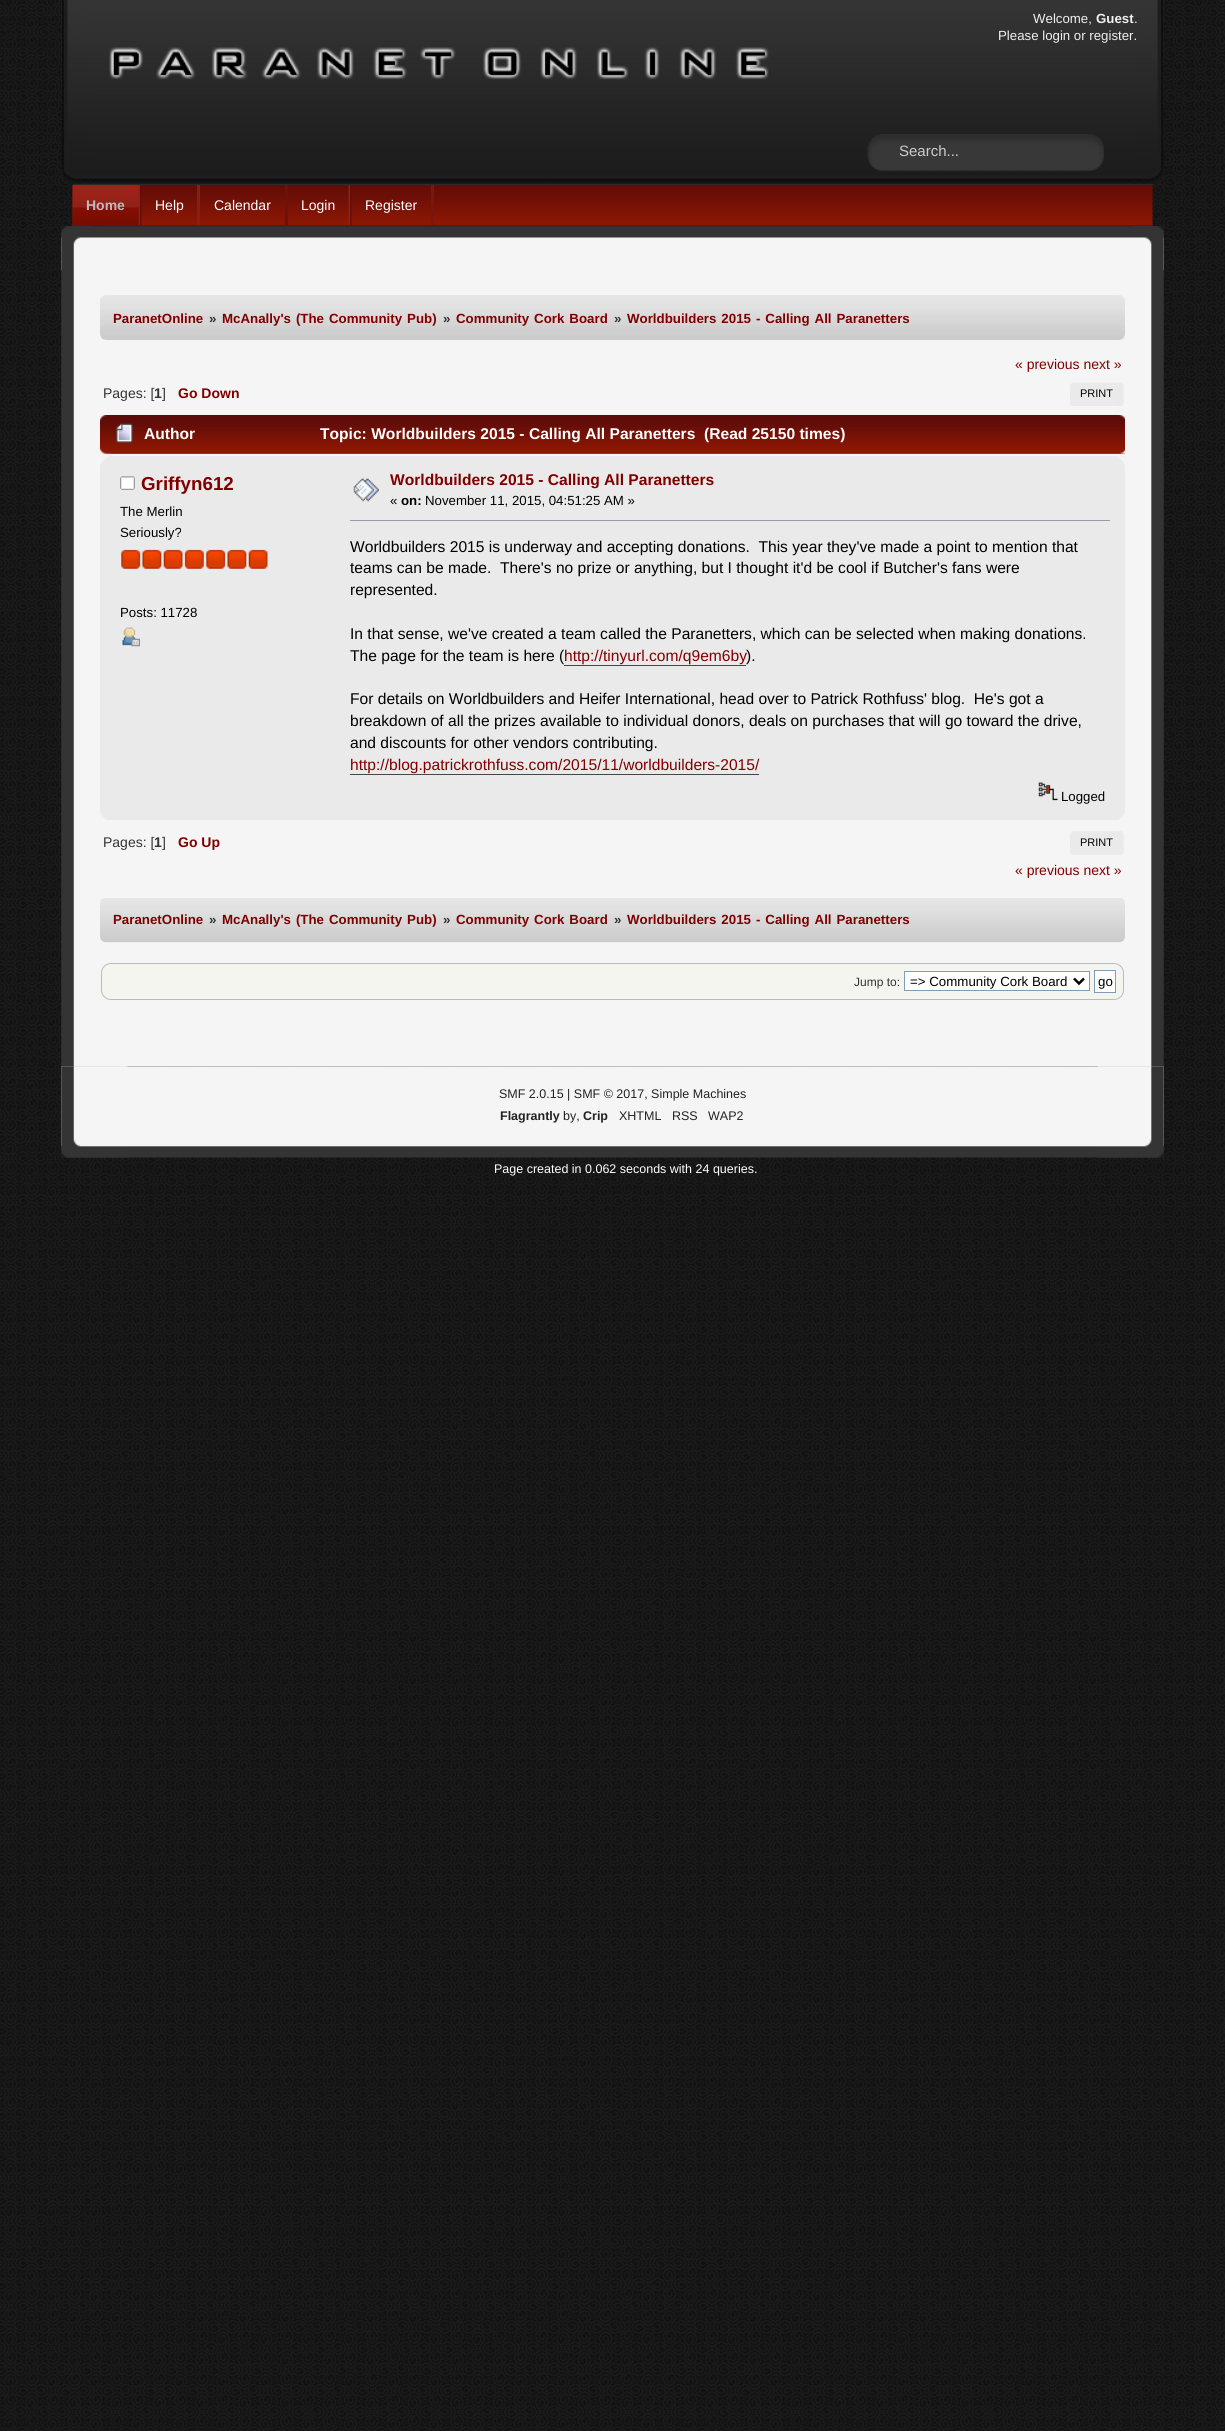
#include <cairo/cairo.h>
#include <math.h>
#include <stddef.h>


static void draw_spaced(cairo_t *cr, double x, double y, const char *s, double letter, double word) {
  cairo_move_to(cr, x, y);
  while (*s) {
    char ch[5] = {0};
    int n = 0;
    do ch[n++] = *s++; while ((*s & 0xC0) == 0x80);
    cairo_show_text(cr, ch);
    cairo_rel_move_to(cr, letter + word * (*ch == ' '), 0);
  }
}

static void rounded_rect(cairo_t *cr, double x, double y, double w, double h, double r) {
  cairo_new_sub_path(cr);
  cairo_arc(cr, x + w - r, y + h - r, r, 0, M_PI / 2);
  cairo_arc(cr, x + r, y + h - r, r, M_PI / 2, M_PI);
  cairo_arc(cr, x + r, y + r, r, M_PI, 1.5 * M_PI);
  cairo_arc(cr, x + w - r, y + r, r, 1.5 * M_PI, 2 * M_PI);
  cairo_close_path(cr);
}

static void draw_image(cairo_t *cr, const char *path, double x, double y, double w, double h) {
  cairo_surface_t *image = cairo_image_surface_create_from_png(path);
  cairo_save(cr);
  cairo_set_source_surface(cr, image, x, y);
  cairo_rectangle(cr, x, y, w, h);
  cairo_fill(cr);
  cairo_restore(cr);
  cairo_surface_destroy(image);
}

static void draw(cairo_t *cr) {
  cairo_set_source_rgb(cr, 1, 1, 1);
  cairo_paint(cr);
  draw_image(cr, "images/1.png", 0, 0, 1225, 2431);
  draw_image(cr, "images/2.png", 61, 0, 1103, 184);
  draw_image(cr, "images/3.png", 61, 0, 31, 184);
  draw_image(cr, "images/4.png", 1133, 0, 31, 184);
  draw_image(cr, "images/5.png", 109, 47, 660, 33);
  draw_image(cr, "images/6.png", 867, 134, 237, 37);
  draw_image(cr, "images/7.png", 72, 185, 1081, 42);
  cairo_set_source_rgb(cr, 43 / 255.0, 43 / 255.0, 43 / 255.0);
  cairo_rectangle(cr, 73, 184, 1080, 1);
  cairo_fill(cr);
  cairo_rectangle(cr, 73, 225, 1080, 1);
  cairo_fill(cr);
  draw_image(cr, "images/8.png", 138, 185, 4, 40);
  draw_image(cr, "images/9.png", 72, 185, 67, 40);
  cairo_set_source_rgb(cr, 136 / 255.0, 30 / 255.0, 20 / 255.0);
  cairo_rectangle(cr, 197, 185, 3, 40);
  cairo_fill(cr);
  cairo_set_source_rgb(cr, 110 / 255.0, 17 / 255.0, 9 / 255.0);
  cairo_rectangle(cr, 285, 185, 3, 40);
  cairo_fill(cr);
  draw_image(cr, "images/8.png", 348, 185, 4, 40);
  cairo_set_source_rgb(cr, 121 / 255.0, 23 / 255.0, 14 / 255.0);
  cairo_rectangle(cr, 431, 185, 3, 40);
  cairo_fill(cr);
  draw_image(cr, "images/10.png", 61, 226, 1103, 44);
  draw_image(cr, "images/11.png", 1133, 226, 31, 44);
  draw_image(cr, "images/12.png", 61, 226, 31, 44);
  draw_image(cr, "images/13.png", 61, 270, 14, 797);
  draw_image(cr, "images/14.png", 1150, 270, 14, 797);
  cairo_set_source_rgb(cr, 245 / 255.0, 245 / 255.0, 245 / 255.0);
  cairo_rectangle(cr, 75, 270, 1075, 796);
  cairo_fill(cr);
  draw_image(cr, "images/15.png", 100, 295, 1025, 45);
  draw_image(cr, "images/16.png", 1070, 382, 44, 24);
  draw_image(cr, "images/17.png", 1114, 382, 10, 24);
  draw_image(cr, "images/18.png", 100, 415, 1025, 39);
  draw_image(cr, "images/19.png", 111, 415, 1014, 39);
  draw_image(cr, "images/20.png", 116, 423, 17, 20);
  cairo_set_source_rgb(cr, 234 / 255.0, 234 / 255.0, 234 / 255.0);
  cairo_rectangle(cr, 100, 456, 1025, 364);
  cairo_fill(cr);
  draw_image(cr, "images/21.png", 100, 456, 9, 9);
  draw_image(cr, "images/22.png", 1117, 456, 8, 9);
  draw_image(cr, "images/23.png", 120, 476, 15, 14);
  draw_image(cr, "images/24.png", 121, 549, 20, 20);
  draw_image(cr, "images/25.png", 142, 549, 20, 20);
  draw_image(cr, "images/26.png", 163, 549, 20, 20);
  draw_image(cr, "images/27.png", 184, 549, 20, 20);
  draw_image(cr, "images/24.png", 206, 549, 20, 20);
  draw_image(cr, "images/25.png", 227, 549, 20, 20);
  draw_image(cr, "images/26.png", 248, 549, 20, 20);
  draw_image(cr, "images/28.png", 122, 627, 18, 20);
  draw_image(cr, "images/29.png", 353, 478, 26, 24);
  cairo_set_source_rgb(cr, 153 / 255.0, 153 / 255.0, 170 / 255.0);
  cairo_rectangle(cr, 350, 520, 760, 1);
  cairo_fill(cr);
  cairo_set_source_rgb(cr, 70 / 255.0, 70 / 255.0, 70 / 255.0);
  cairo_rectangle(cr, 564, 665, 182, 1);
  cairo_fill(cr);
  cairo_rectangle(cr, 350, 774, 409, 1);
  cairo_fill(cr);
  draw_image(cr, "images/30.png", 1038, 782, 20, 19);
  draw_image(cr, "images/31.png", 100, 812, 6, 8);
  draw_image(cr, "images/32.png", 1119, 812, 6, 8);
  draw_image(cr, "images/33.png", 1070, 831, 44, 24);
  draw_image(cr, "images/34.png", 1113, 831, 11, 24);
  draw_image(cr, "images/35.png", 100, 898, 1025, 45);
  cairo_set_source_rgb(cr, 245 / 255.0, 245 / 255.0, 240 / 255.0);
  rounded_rect(cr, 101.5, 963.5, 1022, 36, 9.5);
  cairo_fill_preserve(cr);
  cairo_set_source_rgb(cr, 187 / 255.0, 187 / 255.0, 187 / 255.0);
  cairo_set_line_width(cr, 1);
  cairo_stroke(cr);
  cairo_set_source_rgb(cr, 1, 1, 1);
  cairo_rectangle(cr, 904.5, 971.5, 185, 19);
  cairo_fill_preserve(cr);
  cairo_set_source_rgb(cr, 127 / 255.0, 157 / 255.0, 185 / 255.0);
  cairo_stroke(cr);
  cairo_new_path(cr);
  cairo_move_to(cr, 1074, 978.5);
  cairo_line_to(cr, 1079, 983.5);
  cairo_line_to(cr, 1084, 978.5);
  cairo_set_source_rgb(cr, 0, 0, 0);
  cairo_set_line_width(cr, 2.5);
  cairo_stroke(cr);
  cairo_set_source_rgb(cr, 1, 1, 1);
  cairo_rectangle(cr, 1094.5, 970.5, 21, 22);
  cairo_fill_preserve(cr);
  cairo_set_source_rgb(cr, 127 / 255.0, 157 / 255.0, 185 / 255.0);
  cairo_set_line_width(cr, 1);
  cairo_stroke(cr);
  draw_image(cr, "images/36.png", 61, 1066, 1103, 92);
  draw_image(cr, "images/37.png", 61, 1066, 67, 92);
  draw_image(cr, "images/38.png", 1097, 1066, 67, 92);
  cairo_select_font_face(cr, "Liberation Sans", CAIRO_FONT_SLANT_NORMAL, CAIRO_FONT_WEIGHT_NORMAL);
  cairo_set_font_size(cr, 13.25);
  cairo_set_source_rgb(cr, 240 / 255.0, 240 / 255.0, 240 / 255.0);
  cairo_move_to(cr, 1033, 23);
  cairo_show_text(cr, "Welcome,");
  cairo_select_font_face(cr, "Liberation Sans", CAIRO_FONT_SLANT_NORMAL, CAIRO_FONT_WEIGHT_BOLD);
  cairo_move_to(cr, 1096, 23);
  cairo_show_text(cr, "Guest");
  cairo_select_font_face(cr, "Liberation Sans", CAIRO_FONT_SLANT_NORMAL, CAIRO_FONT_WEIGHT_NORMAL);
  cairo_move_to(cr, 1134, 23);
  cairo_show_text(cr, ".");
  cairo_move_to(cr, 998, 40);
  cairo_show_text(cr, "Please login or register.");
  cairo_set_font_size(cr, 15);
  cairo_set_source_rgb(cr, 204 / 255.0, 204 / 255.0, 204 / 255.0);
  cairo_move_to(cr, 899, 156);
  cairo_show_text(cr, "Search...");
  cairo_select_font_face(cr, "Liberation Sans", CAIRO_FONT_SLANT_NORMAL, CAIRO_FONT_WEIGHT_BOLD);
  cairo_set_font_size(cr, 14);
  cairo_set_source_rgb(cr, 187 / 255.0, 187 / 255.0, 187 / 255.0);
  cairo_move_to(cr, 86, 210);
  cairo_show_text(cr, "Home");
  cairo_select_font_face(cr, "Liberation Sans", CAIRO_FONT_SLANT_NORMAL, CAIRO_FONT_WEIGHT_NORMAL);
  cairo_set_source_rgb(cr, 1, 1, 1);
  cairo_move_to(cr, 155, 210);
  cairo_show_text(cr, "Help");
  cairo_move_to(cr, 214, 210);
  cairo_show_text(cr, "Calendar");
  cairo_move_to(cr, 301, 210);
  cairo_show_text(cr, "Login");
  cairo_move_to(cr, 365, 210);
  cairo_show_text(cr, "Register");
  cairo_select_font_face(cr, "Liberation Sans", CAIRO_FONT_SLANT_NORMAL, CAIRO_FONT_WEIGHT_BOLD);
  cairo_set_font_size(cr, 13.3);
  cairo_set_source_rgb(cr, 128 / 255.0, 0, 0);
  cairo_move_to(cr, 113, 323);
  cairo_show_text(cr, "ParanetOnline");
  cairo_set_source_rgb(cr, 51 / 255.0, 51 / 255.0, 51 / 255.0);
  cairo_move_to(cr, 209, 323);
  cairo_show_text(cr, "»");
  cairo_set_source_rgb(cr, 128 / 255.0, 0, 0);
  draw_spaced(cr, 222, 323, "McAnally's (The Community Pub)", 0, 1.25);
  cairo_set_source_rgb(cr, 51 / 255.0, 51 / 255.0, 51 / 255.0);
  cairo_move_to(cr, 443, 323);
  cairo_show_text(cr, "»");
  cairo_set_source_rgb(cr, 128 / 255.0, 0, 0);
  draw_spaced(cr, 456, 323, "Community Cork Board", 0, 1.25);
  cairo_set_source_rgb(cr, 51 / 255.0, 51 / 255.0, 51 / 255.0);
  cairo_move_to(cr, 614, 323);
  cairo_show_text(cr, "»");
  cairo_set_source_rgb(cr, 128 / 255.0, 0, 0);
  draw_spaced(cr, 627, 323, "Worldbuilders 2015 - Calling All Paranetters", 0, 1.25);
  cairo_select_font_face(cr, "Liberation Sans", CAIRO_FONT_SLANT_NORMAL, CAIRO_FONT_WEIGHT_NORMAL);
  cairo_set_font_size(cr, 14);
  cairo_move_to(cr, 1015, 369);
  cairo_show_text(cr, "« previous next »");
  cairo_set_source_rgb(cr, 51 / 255.0, 51 / 255.0, 51 / 255.0);
  cairo_move_to(cr, 103, 398);
  cairo_show_text(cr, "Pages: [");
  cairo_select_font_face(cr, "Liberation Sans", CAIRO_FONT_SLANT_NORMAL, CAIRO_FONT_WEIGHT_BOLD);
  cairo_move_to(cr, 154, 398);
  cairo_show_text(cr, "1");
  cairo_select_font_face(cr, "Liberation Sans", CAIRO_FONT_SLANT_NORMAL, CAIRO_FONT_WEIGHT_NORMAL);
  cairo_move_to(cr, 162, 398);
  cairo_show_text(cr, "]");
  cairo_select_font_face(cr, "Liberation Sans", CAIRO_FONT_SLANT_NORMAL, CAIRO_FONT_WEIGHT_BOLD);
  cairo_set_source_rgb(cr, 128 / 255.0, 0, 0);
  cairo_move_to(cr, 178, 398);
  cairo_show_text(cr, "Go Down");
  cairo_select_font_face(cr, "Liberation Sans", CAIRO_FONT_SLANT_NORMAL, CAIRO_FONT_WEIGHT_NORMAL);
  cairo_set_font_size(cr, 11);
  cairo_set_source_rgb(cr, 0, 0, 0);
  cairo_move_to(cr, 1080, 397);
  cairo_show_text(cr, "PRINT");
  cairo_select_font_face(cr, "Liberation Sans", CAIRO_FONT_SLANT_NORMAL, CAIRO_FONT_WEIGHT_BOLD);
  cairo_set_font_size(cr, 15.6);
  cairo_set_source_rgb(cr, 1, 1, 1);
  cairo_move_to(cr, 144, 439);
  cairo_show_text(cr, "Author");
  cairo_move_to(cr, 320, 439);
  cairo_show_text(cr, "Topic: Worldbuilders 2015 - Calling All Paranetters  (Read 25150 times)");
  cairo_set_font_size(cr, 18.75);
  cairo_set_source_rgb(cr, 128 / 255.0, 0, 0);
  cairo_move_to(cr, 141, 490);
  cairo_show_text(cr, "Griffyn612");
  cairo_select_font_face(cr, "Liberation Sans", CAIRO_FONT_SLANT_NORMAL, CAIRO_FONT_WEIGHT_NORMAL);
  cairo_set_font_size(cr, 13.25);
  cairo_set_source_rgb(cr, 0, 0, 0);
  cairo_move_to(cr, 120, 516);
  cairo_show_text(cr, "The Merlin");
  cairo_move_to(cr, 120, 537);
  cairo_show_text(cr, "Seriously?");
  cairo_move_to(cr, 120, 617);
  cairo_show_text(cr, "Posts: 11728");
  cairo_select_font_face(cr, "Liberation Sans", CAIRO_FONT_SLANT_NORMAL, CAIRO_FONT_WEIGHT_BOLD);
  cairo_set_font_size(cr, 15.6);
  cairo_set_source_rgb(cr, 128 / 255.0, 0, 0);
  cairo_move_to(cr, 390, 485);
  cairo_show_text(cr, "Worldbuilders 2015 - Calling All Paranetters");
  cairo_select_font_face(cr, "Liberation Sans", CAIRO_FONT_SLANT_NORMAL, CAIRO_FONT_WEIGHT_NORMAL);
  cairo_set_font_size(cr, 13.25);
  cairo_set_source_rgb(cr, 0, 0, 0);
  cairo_move_to(cr, 390, 505);
  cairo_show_text(cr, "«");
  cairo_select_font_face(cr, "Liberation Sans", CAIRO_FONT_SLANT_NORMAL, CAIRO_FONT_WEIGHT_BOLD);
  cairo_move_to(cr, 401, 505);
  cairo_show_text(cr, "on:");
  cairo_select_font_face(cr, "Liberation Sans", CAIRO_FONT_SLANT_NORMAL, CAIRO_FONT_WEIGHT_NORMAL);
  cairo_move_to(cr, 425, 505);
  cairo_show_text(cr, "November 11, 2015, 04:51:25 AM »");
  cairo_set_font_size(cr, 15.6);
  cairo_move_to(cr, 350, 552);
  cairo_show_text(cr, "Worldbuilders 2015 is underway and accepting donations.  This year they've made a point to mention that");
  cairo_move_to(cr, 350, 573);
  cairo_show_text(cr, "teams can be made.  There's no prize or anything, but I thought it'd be cool if Butcher's fans were");
  cairo_move_to(cr, 350, 595);
  cairo_show_text(cr, "represented.");
  cairo_move_to(cr, 350, 639);
  cairo_show_text(cr, "In that sense, we've created a team called the Paranetters, which can be selected when making donations.");
  cairo_move_to(cr, 350, 661);
  cairo_show_text(cr, "The page for the team is here (");
  cairo_set_source_rgb(cr, 128 / 255.0, 0, 0);
  cairo_move_to(cr, 564, 661);
  cairo_show_text(cr, "http://tinyurl.com/q9em6by");
  cairo_set_source_rgb(cr, 0, 0, 0);
  cairo_move_to(cr, 746, 661);
  cairo_show_text(cr, ").");
  cairo_move_to(cr, 350, 704);
  cairo_show_text(cr, "For details on Worldbuilders and Heifer International, head over to Patrick Rothfuss' blog.  He's got a");
  cairo_move_to(cr, 350, 726);
  cairo_show_text(cr, "breakdown of all the prizes available to individual donors, deals on purchases that will go toward the drive,");
  cairo_move_to(cr, 350, 748);
  cairo_show_text(cr, "and discounts for other vendors contributing.");
  cairo_set_source_rgb(cr, 128 / 255.0, 0, 0);
  cairo_move_to(cr, 350, 770);
  cairo_show_text(cr, "http://blog.patrickrothfuss.com/2015/11/worldbuilders-2015/");
  cairo_set_font_size(cr, 13.25);
  cairo_set_source_rgb(cr, 0, 0, 0);
  cairo_move_to(cr, 1061, 801);
  cairo_show_text(cr, "Logged");
  cairo_set_font_size(cr, 14);
  cairo_set_source_rgb(cr, 51 / 255.0, 51 / 255.0, 51 / 255.0);
  cairo_move_to(cr, 103, 847);
  cairo_show_text(cr, "Pages: [");
  cairo_select_font_face(cr, "Liberation Sans", CAIRO_FONT_SLANT_NORMAL, CAIRO_FONT_WEIGHT_BOLD);
  cairo_move_to(cr, 154, 847);
  cairo_show_text(cr, "1");
  cairo_select_font_face(cr, "Liberation Sans", CAIRO_FONT_SLANT_NORMAL, CAIRO_FONT_WEIGHT_NORMAL);
  cairo_move_to(cr, 162, 847);
  cairo_show_text(cr, "]");
  cairo_select_font_face(cr, "Liberation Sans", CAIRO_FONT_SLANT_NORMAL, CAIRO_FONT_WEIGHT_BOLD);
  cairo_set_source_rgb(cr, 128 / 255.0, 0, 0);
  cairo_move_to(cr, 178, 847);
  cairo_show_text(cr, "Go Up");
  cairo_select_font_face(cr, "Liberation Sans", CAIRO_FONT_SLANT_NORMAL, CAIRO_FONT_WEIGHT_NORMAL);
  cairo_set_font_size(cr, 11);
  cairo_set_source_rgb(cr, 0, 0, 0);
  cairo_move_to(cr, 1080, 846);
  cairo_show_text(cr, "PRINT");
  cairo_set_font_size(cr, 14);
  cairo_set_source_rgb(cr, 128 / 255.0, 0, 0);
  cairo_move_to(cr, 1015, 875);
  cairo_show_text(cr, "« previous next »");
  cairo_select_font_face(cr, "Liberation Sans", CAIRO_FONT_SLANT_NORMAL, CAIRO_FONT_WEIGHT_BOLD);
  cairo_set_font_size(cr, 13.3);
  cairo_move_to(cr, 113, 924);
  cairo_show_text(cr, "ParanetOnline");
  cairo_set_source_rgb(cr, 51 / 255.0, 51 / 255.0, 51 / 255.0);
  cairo_move_to(cr, 209, 924);
  cairo_show_text(cr, "»");
  cairo_set_source_rgb(cr, 128 / 255.0, 0, 0);
  draw_spaced(cr, 222, 924, "McAnally's (The Community Pub)", 0, 1.25);
  cairo_set_source_rgb(cr, 51 / 255.0, 51 / 255.0, 51 / 255.0);
  cairo_move_to(cr, 443, 924);
  cairo_show_text(cr, "»");
  cairo_set_source_rgb(cr, 128 / 255.0, 0, 0);
  draw_spaced(cr, 456, 924, "Community Cork Board", 0, 1.25);
  cairo_set_source_rgb(cr, 51 / 255.0, 51 / 255.0, 51 / 255.0);
  cairo_move_to(cr, 614, 924);
  cairo_show_text(cr, "»");
  cairo_set_source_rgb(cr, 128 / 255.0, 0, 0);
  draw_spaced(cr, 627, 924, "Worldbuilders 2015 - Calling All Paranetters", 0, 1.25);
  cairo_select_font_face(cr, "Liberation Sans", CAIRO_FONT_SLANT_NORMAL, CAIRO_FONT_WEIGHT_NORMAL);
  cairo_set_font_size(cr, 12);
  cairo_set_source_rgb(cr, 51 / 255.0, 51 / 255.0, 51 / 255.0);
  cairo_move_to(cr, 854, 986);
  cairo_show_text(cr, "Jump to:");
  cairo_set_font_size(cr, 13.3);
  cairo_set_source_rgb(cr, 0, 0, 0);
  cairo_move_to(cr, 910, 986);
  cairo_show_text(cr, "=> Community Cork Board");
  cairo_move_to(cr, 1098, 986);
  cairo_show_text(cr, "go");
  cairo_set_font_size(cr, 12.5);
  cairo_set_source_rgb(cr, 34 / 255.0, 34 / 255.0, 34 / 255.0);
  cairo_move_to(cr, 499, 1098);
  cairo_show_text(cr, "SMF 2.0.15 | SMF © 2017, Simple Machines");
  cairo_select_font_face(cr, "Liberation Sans", CAIRO_FONT_SLANT_NORMAL, CAIRO_FONT_WEIGHT_BOLD);
  cairo_move_to(cr, 500, 1120);
  cairo_show_text(cr, "Flagrantly");
  cairo_select_font_face(cr, "Liberation Sans", CAIRO_FONT_SLANT_NORMAL, CAIRO_FONT_WEIGHT_NORMAL);
  cairo_move_to(cr, 563, 1120);
  cairo_show_text(cr, "by,");
  cairo_select_font_face(cr, "Liberation Sans", CAIRO_FONT_SLANT_NORMAL, CAIRO_FONT_WEIGHT_BOLD);
  cairo_move_to(cr, 583, 1120);
  cairo_show_text(cr, "Crip");
  cairo_select_font_face(cr, "Liberation Sans", CAIRO_FONT_SLANT_NORMAL, CAIRO_FONT_WEIGHT_NORMAL);
  cairo_move_to(cr, 619, 1120);
  cairo_show_text(cr, "XHTML");
  cairo_move_to(cr, 672, 1120);
  cairo_show_text(cr, "RSS");
  cairo_move_to(cr, 708, 1120);
  cairo_show_text(cr, "WAP2");
  cairo_set_source_rgb(cr, 1, 1, 1);
  cairo_move_to(cr, 494, 1173);
  cairo_show_text(cr, "Page created in 0.062 seconds with 24 queries.");
}

int main(void) {
  cairo_surface_t *surface = cairo_image_surface_create(CAIRO_FORMAT_RGB24, 1225, 2431);
  cairo_t *cr = cairo_create(surface);
  cairo_font_options_t *options = cairo_font_options_create();
  cairo_font_options_set_hint_metrics(options, CAIRO_HINT_METRICS_OFF);
  cairo_font_options_set_hint_style(options, CAIRO_HINT_STYLE_NONE);
  cairo_set_font_options(cr, options);
  cairo_set_miter_limit(cr, 4);
  draw(cr);
  cairo_surface_write_to_png(surface, "out.png");
  cairo_font_options_destroy(options);
  cairo_destroy(cr);
  cairo_surface_destroy(surface);
  return 0;
}
